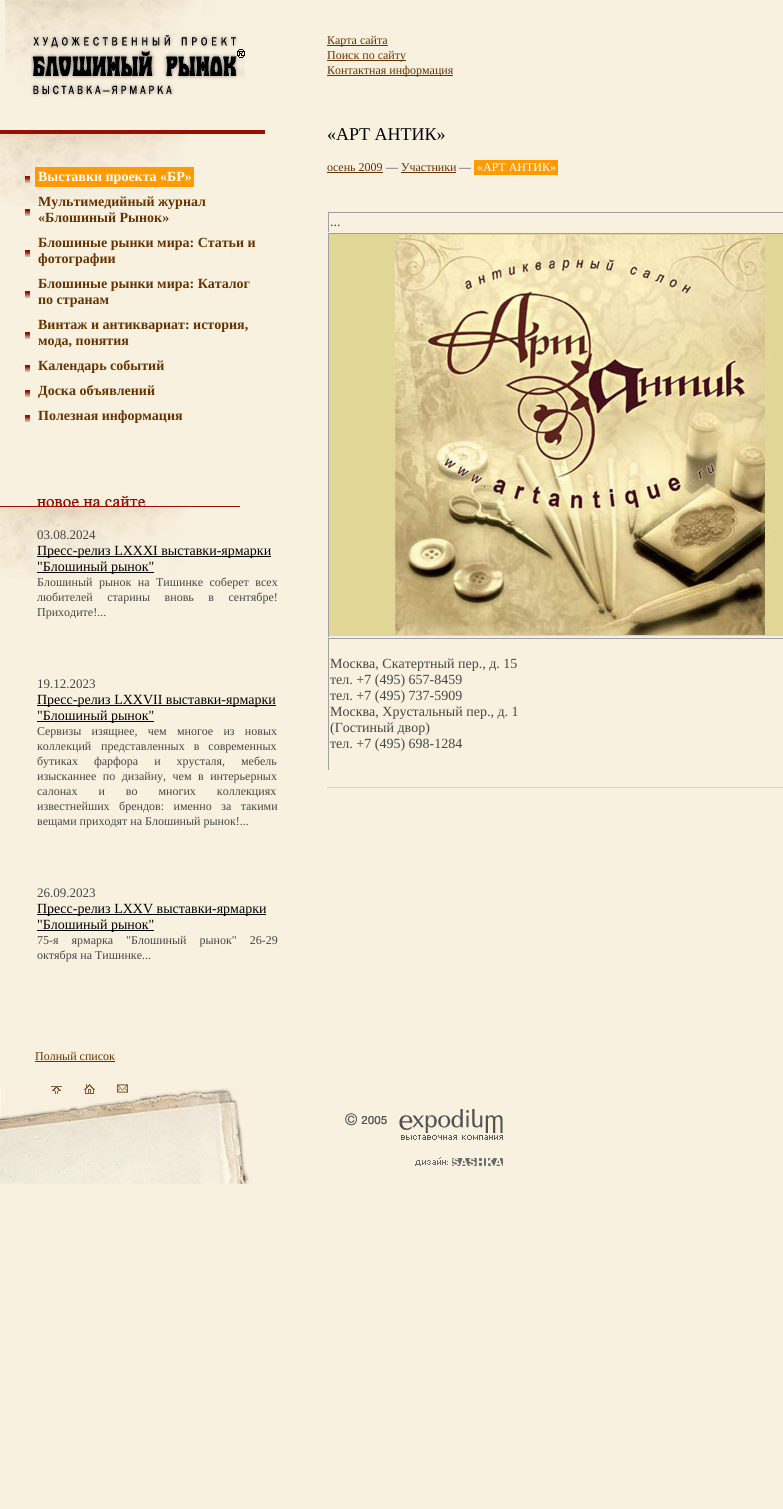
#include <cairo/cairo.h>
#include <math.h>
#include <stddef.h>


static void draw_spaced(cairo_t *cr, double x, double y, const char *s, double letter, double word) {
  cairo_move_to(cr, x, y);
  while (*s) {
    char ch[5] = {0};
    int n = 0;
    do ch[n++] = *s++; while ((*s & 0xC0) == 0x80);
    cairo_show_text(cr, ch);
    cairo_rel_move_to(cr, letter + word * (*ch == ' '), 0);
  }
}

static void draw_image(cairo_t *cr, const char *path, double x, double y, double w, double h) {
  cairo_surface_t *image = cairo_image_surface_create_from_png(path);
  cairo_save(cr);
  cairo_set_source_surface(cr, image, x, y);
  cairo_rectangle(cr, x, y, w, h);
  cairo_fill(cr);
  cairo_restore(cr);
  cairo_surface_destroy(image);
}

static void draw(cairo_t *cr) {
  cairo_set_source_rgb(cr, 248 / 255.0, 241 / 255.0, 223 / 255.0);
  cairo_paint(cr);
  draw_image(cr, "images/1.png", 5, 0, 240, 97);
  draw_image(cr, "images/2.png", 0, 134, 188, 72);
  cairo_set_source_rgb(cr, 151 / 255.0, 15 / 255.0, 0);
  cairo_rectangle(cr, 0, 130, 265, 4);
  cairo_fill(cr);
  draw_image(cr, "images/3.png", 25, 176, 5, 7);
  cairo_set_source_rgb(cr, 1, 155 / 255.0, 0);
  cairo_rectangle(cr, 35, 167, 159, 20);
  cairo_fill(cr);
  draw_image(cr, "images/3.png", 25, 209, 5, 7);
  draw_image(cr, "images/3.png", 25, 250, 5, 7);
  draw_image(cr, "images/3.png", 25, 291, 5, 7);
  draw_image(cr, "images/3.png", 25, 332, 5, 7);
  draw_image(cr, "images/3.png", 25, 365, 5, 7);
  draw_image(cr, "images/3.png", 25, 390, 5, 7);
  draw_image(cr, "images/3.png", 25, 415, 5, 7);
  cairo_set_source_rgb(cr, 146 / 255.0, 20 / 255.0, 0);
  cairo_rectangle(cr, 0, 506, 240, 1);
  cairo_fill(cr);
  draw_image(cr, "images/4.png", 37, 496, 108, 10);
  draw_image(cr, "images/2.png", 0, 507, 188, 72);
  cairo_set_source_rgb(cr, 0, 0, 0);
  cairo_rectangle(cr, 37, 556, 234, 1);
  cairo_fill(cr);
  cairo_rectangle(cr, 37, 572, 117, 1);
  cairo_fill(cr);
  cairo_rectangle(cr, 37, 705, 239, 1);
  cairo_fill(cr);
  cairo_rectangle(cr, 37, 721, 117, 1);
  cairo_fill(cr);
  cairo_rectangle(cr, 37, 914, 229, 1);
  cairo_fill(cr);
  cairo_rectangle(cr, 37, 930, 117, 1);
  cairo_fill(cr);
  cairo_set_source_rgb(cr, 102 / 255.0, 51 / 255.0, 0);
  cairo_rectangle(cr, 35, 1061, 80, 1);
  cairo_fill(cr);
  cairo_rectangle(cr, 327, 45, 61, 1);
  cairo_fill(cr);
  cairo_rectangle(cr, 327, 60, 79, 1);
  cairo_fill(cr);
  cairo_rectangle(cr, 327, 75, 126, 1);
  cairo_fill(cr);
  cairo_rectangle(cr, 327, 172, 56, 1);
  cairo_fill(cr);
  cairo_rectangle(cr, 401, 172, 55, 1);
  cairo_fill(cr);
  cairo_set_source_rgb(cr, 1, 155 / 255.0, 0);
  cairo_rectangle(cr, 474, 160, 84, 15);
  cairo_fill(cr);
  cairo_set_source_rgb(cr, 159 / 255.0, 159 / 255.0, 159 / 255.0);
  cairo_rectangle(cr, 328, 212, 455, 1);
  cairo_fill(cr);
  cairo_set_source_rgb(cr, 238 / 255.0, 238 / 255.0, 238 / 255.0);
  cairo_rectangle(cr, 328, 231, 455, 1);
  cairo_fill(cr);
  cairo_set_source_rgb(cr, 159 / 255.0, 159 / 255.0, 159 / 255.0);
  cairo_rectangle(cr, 328, 212, 1, 20);
  cairo_fill(cr);
  cairo_set_source_rgb(cr, 224 / 255.0, 215 / 255.0, 150 / 255.0);
  cairo_rectangle(cr, 329, 234, 454, 402);
  cairo_fill(cr);
  cairo_set_source_rgb(cr, 159 / 255.0, 159 / 255.0, 159 / 255.0);
  cairo_rectangle(cr, 328, 233, 455, 1);
  cairo_fill(cr);
  cairo_set_source_rgb(cr, 238 / 255.0, 238 / 255.0, 238 / 255.0);
  cairo_rectangle(cr, 328, 636, 455, 1);
  cairo_fill(cr);
  cairo_set_source_rgb(cr, 159 / 255.0, 159 / 255.0, 159 / 255.0);
  cairo_rectangle(cr, 328, 233, 1, 404);
  cairo_fill(cr);
  draw_image(cr, "images/5.png", 394, 235, 376, 400);
  cairo_rectangle(cr, 328, 638, 455, 1);
  cairo_fill(cr);
  cairo_set_source_rgb(cr, 238 / 255.0, 238 / 255.0, 238 / 255.0);
  cairo_rectangle(cr, 328, 769, 455, 1);
  cairo_fill(cr);
  cairo_set_source_rgb(cr, 159 / 255.0, 159 / 255.0, 159 / 255.0);
  cairo_rectangle(cr, 328, 638, 1, 132);
  cairo_fill(cr);
  cairo_set_source_rgb(cr, 225 / 255.0, 210 / 255.0, 189 / 255.0);
  cairo_rectangle(cr, 327, 787, 456, 1);
  cairo_fill(cr);
  draw_image(cr, "images/6.png", 0, 1087, 252, 97);
  draw_image(cr, "images/7.png", 51, 1086, 11, 8);
  draw_image(cr, "images/8.png", 84, 1084, 11, 10);
  draw_image(cr, "images/9.png", 117, 1084, 11, 9);
  draw_image(cr, "images/10.png", 345, 1109, 158, 31);
  draw_image(cr, "images/11.png", 415, 1157, 88, 9);
  cairo_select_font_face(cr, "Liberation Serif", CAIRO_FONT_SLANT_NORMAL, CAIRO_FONT_WEIGHT_BOLD);
  cairo_set_font_size(cr, 14);
  cairo_set_source_rgb(cr, 1, 1, 1);
  cairo_move_to(cr, 38, 181);
  cairo_show_text(cr, "Выставки проекта «БР»");
  cairo_set_source_rgb(cr, 102 / 255.0, 51 / 255.0, 0);
  cairo_move_to(cr, 38, 206);
  cairo_show_text(cr, "Мультимедийный журнал");
  cairo_move_to(cr, 38, 222);
  cairo_show_text(cr, "«Блошиный Рынок»");
  cairo_move_to(cr, 38, 247);
  cairo_show_text(cr, "Блошиные рынки мира: Статьи и");
  cairo_move_to(cr, 38, 263);
  cairo_show_text(cr, "фотографии");
  cairo_move_to(cr, 38, 288);
  cairo_show_text(cr, "Блошиные рынки мира: Каталог");
  cairo_move_to(cr, 38, 304);
  cairo_show_text(cr, "по странам");
  cairo_move_to(cr, 38, 329);
  cairo_show_text(cr, "Винтаж и антиквариат: история,");
  cairo_move_to(cr, 38, 345);
  cairo_show_text(cr, "мода, понятия");
  cairo_move_to(cr, 38, 370);
  cairo_show_text(cr, "Календарь событий");
  cairo_move_to(cr, 38, 395);
  cairo_show_text(cr, "Доска объявлений");
  cairo_move_to(cr, 38, 420);
  cairo_show_text(cr, "Полезная информация");
  cairo_select_font_face(cr, "Liberation Serif", CAIRO_FONT_SLANT_NORMAL, CAIRO_FONT_WEIGHT_NORMAL);
  cairo_set_font_size(cr, 13);
  cairo_set_source_rgb(cr, 69 / 255.0, 69 / 255.0, 69 / 255.0);
  cairo_move_to(cr, 37, 539);
  cairo_show_text(cr, "03.08.2024");
  cairo_set_font_size(cr, 14);
  cairo_set_source_rgb(cr, 0, 0, 0);
  cairo_move_to(cr, 37, 555);
  cairo_show_text(cr, "Пресс-релиз LXXXI выставки-ярмарки");
  cairo_move_to(cr, 37, 571);
  cairo_show_text(cr, "\"Блошиный рынок\"");
  cairo_set_font_size(cr, 12);
  cairo_set_source_rgb(cr, 69 / 255.0, 69 / 255.0, 69 / 255.0);
  draw_spaced(cr, 37, 586, "Блошиный рынок на Тишинке соберет всех", 0, 3.5);
  draw_spaced(cr, 37, 601, "любителей старины вновь в сентябре!", 0, 11.5);
  cairo_move_to(cr, 37, 616);
  cairo_show_text(cr, "Приходите!...");
  cairo_set_font_size(cr, 13);
  cairo_move_to(cr, 37, 688);
  cairo_show_text(cr, "19.12.2023");
  cairo_set_font_size(cr, 14);
  cairo_set_source_rgb(cr, 0, 0, 0);
  cairo_move_to(cr, 37, 704);
  cairo_show_text(cr, "Пресс-релиз LXXVII выставки-ярмарки");
  cairo_move_to(cr, 37, 720);
  cairo_show_text(cr, "\"Блошиный рынок\"");
  cairo_set_font_size(cr, 12);
  cairo_set_source_rgb(cr, 69 / 255.0, 69 / 255.0, 69 / 255.0);
  draw_spaced(cr, 37, 735, "Сервизы изящнее, чем многое из новых", 0, 7.25);
  cairo_move_to(cr, 37, 750);
  cairo_show_text(cr, "коллекций");
  draw_spaced(cr, 101, 750, "представленных в современных", 0, 6);
  draw_spaced(cr, 37, 765, "бутиках фарфора и хрусталя, мебель", 0, 13);
  draw_spaced(cr, 37, 780, "изысканнее по дизайну, чем в интерьерных", 0, 3.5);
  draw_spaced(cr, 37, 795, "салонах и во многих коллекциях", 0, 18);
  draw_spaced(cr, 37, 810, "известнейших брендов: именно за такими", 0, 6.5);
  cairo_move_to(cr, 37, 825);
  cairo_show_text(cr, "вещами приходят на Блошиный рынок!...");
  cairo_set_font_size(cr, 13);
  cairo_move_to(cr, 37, 897);
  cairo_show_text(cr, "26.09.2023");
  cairo_set_font_size(cr, 14);
  cairo_set_source_rgb(cr, 0, 0, 0);
  cairo_move_to(cr, 37, 913);
  cairo_show_text(cr, "Пресс-релиз LXXV выставки-ярмарки");
  cairo_move_to(cr, 37, 929);
  cairo_show_text(cr, "\"Блошиный рынок\"");
  cairo_set_font_size(cr, 12);
  cairo_set_source_rgb(cr, 69 / 255.0, 69 / 255.0, 69 / 255.0);
  draw_spaced(cr, 37, 944, "75-я ярмарка \"Блошиный рынок\" 26-29", 0, 10);
  cairo_move_to(cr, 37, 959);
  cairo_show_text(cr, "октября на Тишинке...");
  cairo_set_source_rgb(cr, 102 / 255.0, 51 / 255.0, 0);
  cairo_move_to(cr, 35, 1060);
  cairo_show_text(cr, "Полный список");
  cairo_move_to(cr, 327, 44);
  cairo_show_text(cr, "Карта сайта");
  cairo_move_to(cr, 327, 59);
  cairo_show_text(cr, "Поиск по сайту");
  cairo_move_to(cr, 327, 74);
  cairo_show_text(cr, "Контактная информация");
  cairo_set_font_size(cr, 18);
  cairo_set_source_rgb(cr, 0, 0, 0);
  cairo_move_to(cr, 327, 140);
  cairo_show_text(cr, "«АРТ АНТИК»");
  cairo_set_font_size(cr, 12);
  cairo_set_source_rgb(cr, 102 / 255.0, 51 / 255.0, 0);
  cairo_move_to(cr, 327, 171);
  cairo_show_text(cr, "осень 2009");
  cairo_set_source_rgb(cr, 69 / 255.0, 69 / 255.0, 69 / 255.0);
  cairo_move_to(cr, 386, 171);
  cairo_show_text(cr, "—");
  cairo_set_source_rgb(cr, 102 / 255.0, 51 / 255.0, 0);
  cairo_move_to(cr, 401, 171);
  cairo_show_text(cr, "Участники");
  cairo_set_source_rgb(cr, 69 / 255.0, 69 / 255.0, 69 / 255.0);
  cairo_move_to(cr, 459, 171);
  cairo_show_text(cr, "—");
  cairo_set_source_rgb(cr, 1, 1, 1);
  cairo_move_to(cr, 477, 171);
  cairo_show_text(cr, "«АРТ АНТИК»");
  cairo_set_font_size(cr, 14);
  cairo_set_source_rgb(cr, 69 / 255.0, 69 / 255.0, 69 / 255.0);
  cairo_move_to(cr, 330, 226);
  cairo_show_text(cr, "...");
  cairo_move_to(cr, 330, 668);
  cairo_show_text(cr, "Москва, Скатертный пер., д. 15");
  cairo_move_to(cr, 330, 684);
  cairo_show_text(cr, "тел. +7 (495) 657-8459");
  cairo_move_to(cr, 330, 700);
  cairo_show_text(cr, "тел. +7 (495) 737-5909");
  cairo_move_to(cr, 330, 716);
  cairo_show_text(cr, "Москва, Хрустальный пер., д. 1");
  cairo_move_to(cr, 330, 732);
  cairo_show_text(cr, "(Гостиный двор)");
  cairo_move_to(cr, 330, 748);
  cairo_show_text(cr, "тел. +7 (495) 698-1284");
}

int main(void) {
  cairo_surface_t *surface = cairo_image_surface_create(CAIRO_FORMAT_RGB24, 783, 1509);
  cairo_t *cr = cairo_create(surface);
  cairo_font_options_t *options = cairo_font_options_create();
  cairo_font_options_set_hint_metrics(options, CAIRO_HINT_METRICS_OFF);
  cairo_font_options_set_hint_style(options, CAIRO_HINT_STYLE_NONE);
  cairo_set_font_options(cr, options);
  cairo_set_miter_limit(cr, 4);
  draw(cr);
  cairo_surface_write_to_png(surface, "out.png");
  cairo_font_options_destroy(options);
  cairo_destroy(cr);
  cairo_surface_destroy(surface);
  return 0;
}
